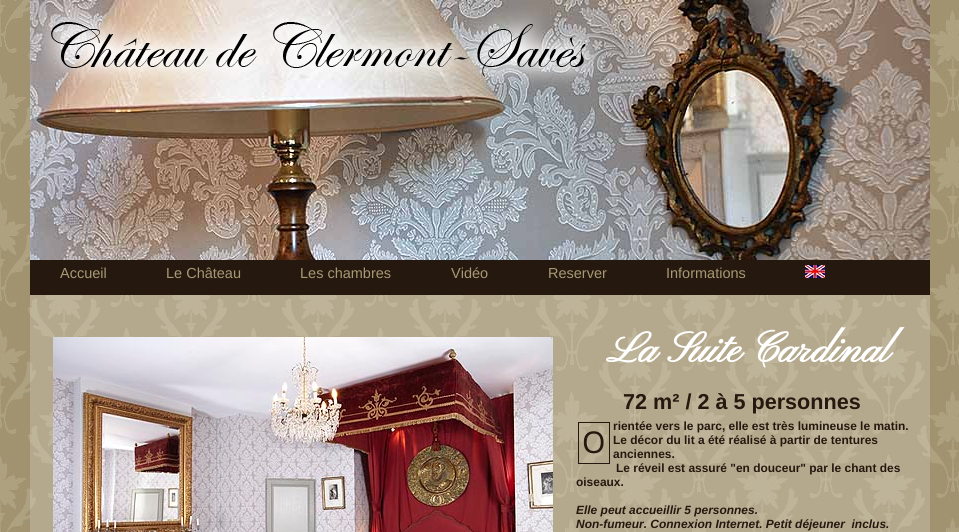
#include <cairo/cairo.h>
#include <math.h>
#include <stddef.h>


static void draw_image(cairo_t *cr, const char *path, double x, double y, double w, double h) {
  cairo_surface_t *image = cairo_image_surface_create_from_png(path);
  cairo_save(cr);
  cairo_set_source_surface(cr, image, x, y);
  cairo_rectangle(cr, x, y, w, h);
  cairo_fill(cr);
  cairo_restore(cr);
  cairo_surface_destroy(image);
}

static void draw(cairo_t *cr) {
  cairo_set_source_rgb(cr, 1, 1, 1);
  cairo_paint(cr);
  draw_image(cr, "images/1.png", 0, 0, 959, 532);
  draw_image(cr, "images/2.png", 30, 0, 900, 260);
  draw_image(cr, "images/3.png", 34, 3, 569, 85);
  cairo_set_source_rgb(cr, 37 / 255.0, 24 / 255.0, 15 / 255.0);
  cairo_rectangle(cr, 30, 260, 900, 35);
  cairo_fill(cr);
  draw_image(cr, "images/4.png", 805, 265, 20, 13);
  cairo_set_source_rgba(cr, 1, 1, 1, 0.2);
  cairo_rectangle(cr, 30, 295, 900, 237);
  cairo_fill(cr);
  draw_image(cr, "images/5.png", 53, 337, 500, 195);
  cairo_rectangle(cr, 578.5, 422.5, 31, 41);
  cairo_set_source_rgb(cr, 37 / 255.0, 24 / 255.0, 15 / 255.0);
  cairo_set_line_width(cr, 1);
  cairo_stroke(cr);
  cairo_select_font_face(cr, "Liberation Sans", CAIRO_FONT_SLANT_NORMAL, CAIRO_FONT_WEIGHT_NORMAL);
  cairo_set_font_size(cr, 14.5);
  cairo_set_source_rgb(cr, 167 / 255.0, 153 / 255.0, 115 / 255.0);
  cairo_move_to(cr, 60, 278);
  cairo_show_text(cr, "Accueil");
  cairo_move_to(cr, 166, 278);
  cairo_show_text(cr, "Le Château");
  cairo_move_to(cr, 300, 278);
  cairo_show_text(cr, "Les chambres");
  cairo_move_to(cr, 451, 278);
  cairo_show_text(cr, "Vidéo");
  cairo_move_to(cr, 548, 278);
  cairo_show_text(cr, "Reserver");
  cairo_move_to(cr, 666, 278);
  cairo_show_text(cr, "Informations");
  cairo_select_font_face(cr, "Pinyon Script", CAIRO_FONT_SLANT_NORMAL, CAIRO_FONT_WEIGHT_BOLD);
  cairo_set_font_size(cr, 43.25);
  cairo_set_source_rgb(cr, 1, 1, 1);
  cairo_move_to(cr, 606, 362);
  cairo_show_text(cr, "La Suite Cardinal");
  cairo_select_font_face(cr, "Liberation Sans", CAIRO_FONT_SLANT_NORMAL, CAIRO_FONT_WEIGHT_BOLD);
  cairo_set_font_size(cr, 21.6);
  cairo_set_source_rgb(cr, 37 / 255.0, 24 / 255.0, 15 / 255.0);
  cairo_move_to(cr, 623, 409);
  cairo_show_text(cr, "72 m² / 2 à 5 personnes");
  cairo_set_font_size(cr, 11.95);
  cairo_move_to(cr, 613, 430);
  cairo_show_text(cr, "rientée vers le parc, elle est très lumineuse le matin.");
  cairo_select_font_face(cr, "Noto Sans", CAIRO_FONT_SLANT_NORMAL, CAIRO_FONT_WEIGHT_NORMAL);
  cairo_set_font_size(cr, 30);
  cairo_move_to(cr, 582, 453);
  cairo_show_text(cr, "O");
  cairo_select_font_face(cr, "Liberation Sans", CAIRO_FONT_SLANT_NORMAL, CAIRO_FONT_WEIGHT_BOLD);
  cairo_set_font_size(cr, 11.95);
  cairo_move_to(cr, 613, 444);
  cairo_show_text(cr, "Le décor du lit a été réalisé à partir de tentures");
  cairo_move_to(cr, 613, 458);
  cairo_show_text(cr, "anciennes.");
  cairo_move_to(cr, 616, 472);
  cairo_show_text(cr, "Le réveil est assuré \"en douceur\" par le chant des");
  cairo_move_to(cr, 576, 486);
  cairo_show_text(cr, "oiseaux.");
  cairo_select_font_face(cr, "Liberation Sans", CAIRO_FONT_SLANT_ITALIC, CAIRO_FONT_WEIGHT_BOLD);
  cairo_move_to(cr, 576, 514);
  cairo_show_text(cr, "Elle peut accueillir 5 personnes.");
  cairo_move_to(cr, 576, 528);
  cairo_show_text(cr, "Non-fumeur. Connexion Internet. Petit déjeuner  inclus.");
}

int main(void) {
  cairo_surface_t *surface = cairo_image_surface_create(CAIRO_FORMAT_RGB24, 959, 532);
  cairo_t *cr = cairo_create(surface);
  cairo_font_options_t *options = cairo_font_options_create();
  cairo_font_options_set_hint_metrics(options, CAIRO_HINT_METRICS_OFF);
  cairo_font_options_set_hint_style(options, CAIRO_HINT_STYLE_NONE);
  cairo_set_font_options(cr, options);
  cairo_set_miter_limit(cr, 4);
  draw(cr);
  cairo_surface_write_to_png(surface, "out.png");
  cairo_font_options_destroy(options);
  cairo_destroy(cr);
  cairo_surface_destroy(surface);
  return 0;
}
